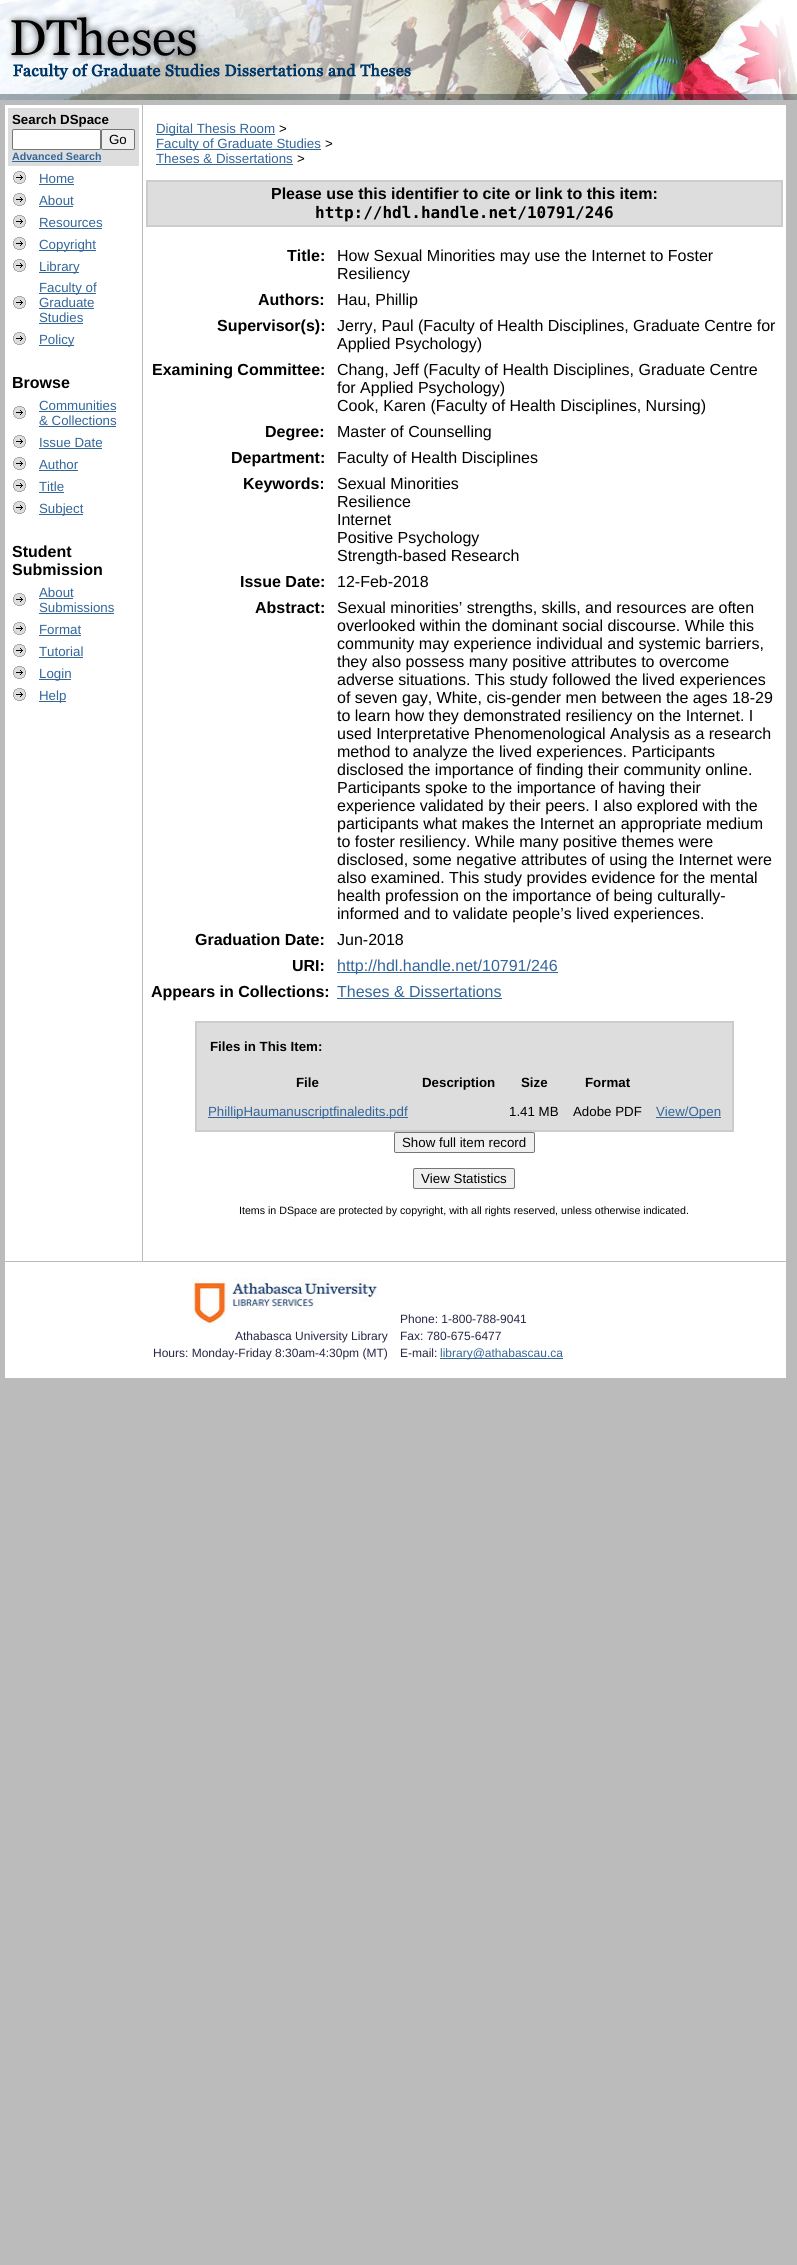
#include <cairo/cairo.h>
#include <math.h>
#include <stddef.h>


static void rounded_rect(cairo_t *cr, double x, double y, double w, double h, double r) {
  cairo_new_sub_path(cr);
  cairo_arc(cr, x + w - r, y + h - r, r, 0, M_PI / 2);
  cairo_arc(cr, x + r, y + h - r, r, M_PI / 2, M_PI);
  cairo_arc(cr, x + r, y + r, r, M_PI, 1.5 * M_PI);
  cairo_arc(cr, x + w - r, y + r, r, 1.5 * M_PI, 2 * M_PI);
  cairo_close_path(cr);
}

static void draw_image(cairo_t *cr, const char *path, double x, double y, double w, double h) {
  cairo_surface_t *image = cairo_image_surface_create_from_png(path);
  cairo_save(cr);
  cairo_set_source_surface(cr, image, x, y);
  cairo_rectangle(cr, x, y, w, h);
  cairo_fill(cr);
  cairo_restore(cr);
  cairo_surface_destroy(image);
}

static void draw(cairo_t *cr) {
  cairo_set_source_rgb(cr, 187 / 255.0, 187 / 255.0, 187 / 255.0);
  cairo_paint(cr);
  draw_image(cr, "images/1.png", 0, 0, 797, 100);
  cairo_set_source_rgb(cr, 1, 1, 1);
  cairo_rectangle(cr, 5, 105, 137, 1156);
  cairo_fill(cr);
  cairo_set_source_rgb(cr, 221 / 255.0, 221 / 255.0, 221 / 255.0);
  cairo_rectangle(cr, 8, 108, 131, 58);
  cairo_fill(cr);
  cairo_set_source_rgb(cr, 1, 1, 1);
  rounded_rect(cr, 12.5, 129.5, 88, 20, 1.5);
  cairo_fill_preserve(cr);
  cairo_set_source_rgb(cr, 118 / 255.0, 118 / 255.0, 118 / 255.0);
  cairo_set_line_width(cr, 1);
  cairo_stroke(cr);
  cairo_set_source_rgb(cr, 239 / 255.0, 239 / 255.0, 239 / 255.0);
  rounded_rect(cr, 101.5, 129.5, 33, 20, 1.5);
  cairo_fill_preserve(cr);
  cairo_set_source_rgb(cr, 118 / 255.0, 118 / 255.0, 118 / 255.0);
  cairo_stroke(cr);
  cairo_set_source_rgb(cr, 51 / 255.0, 102 / 255.0, 153 / 255.0);
  cairo_rectangle(cr, 12, 161, 89, 1);
  cairo_fill(cr);
  draw_image(cr, "images/2.png", 13, 171, 13, 13);
  cairo_rectangle(cr, 39, 184, 35, 1);
  cairo_fill(cr);
  draw_image(cr, "images/2.png", 13, 193, 13, 13);
  cairo_rectangle(cr, 39, 206, 34, 1);
  cairo_fill(cr);
  draw_image(cr, "images/2.png", 13, 215, 13, 13);
  cairo_rectangle(cr, 39, 228, 63, 1);
  cairo_fill(cr);
  draw_image(cr, "images/2.png", 13, 237, 13, 13);
  cairo_rectangle(cr, 39, 250, 57, 1);
  cairo_fill(cr);
  draw_image(cr, "images/2.png", 13, 259, 13, 13);
  cairo_rectangle(cr, 39, 272, 40, 1);
  cairo_fill(cr);
  draw_image(cr, "images/2.png", 13, 296, 13, 13);
  cairo_rectangle(cr, 39, 293, 57, 1);
  cairo_fill(cr);
  cairo_rectangle(cr, 39, 308, 55, 1);
  cairo_fill(cr);
  cairo_rectangle(cr, 39, 323, 44, 1);
  cairo_fill(cr);
  draw_image(cr, "images/2.png", 13, 332, 13, 13);
  cairo_rectangle(cr, 39, 345, 35, 1);
  cairo_fill(cr);
  draw_image(cr, "images/2.png", 13, 406, 13, 13);
  cairo_rectangle(cr, 39, 411, 77, 1);
  cairo_fill(cr);
  cairo_rectangle(cr, 39, 426, 77, 1);
  cairo_fill(cr);
  draw_image(cr, "images/2.png", 13, 435, 13, 13);
  cairo_rectangle(cr, 39, 448, 63, 1);
  cairo_fill(cr);
  draw_image(cr, "images/2.png", 13, 457, 13, 13);
  cairo_rectangle(cr, 39, 470, 39, 1);
  cairo_fill(cr);
  draw_image(cr, "images/2.png", 13, 479, 13, 13);
  cairo_rectangle(cr, 39, 492, 25, 1);
  cairo_fill(cr);
  draw_image(cr, "images/2.png", 13, 501, 13, 13);
  cairo_rectangle(cr, 39, 514, 44, 1);
  cairo_fill(cr);
  draw_image(cr, "images/2.png", 13, 593, 13, 13);
  cairo_rectangle(cr, 39, 598, 34, 1);
  cairo_fill(cr);
  cairo_rectangle(cr, 39, 613, 75, 1);
  cairo_fill(cr);
  draw_image(cr, "images/2.png", 13, 622, 13, 13);
  cairo_rectangle(cr, 39, 635, 42, 1);
  cairo_fill(cr);
  draw_image(cr, "images/2.png", 13, 644, 13, 13);
  cairo_rectangle(cr, 39, 657, 44, 1);
  cairo_fill(cr);
  draw_image(cr, "images/2.png", 13, 666, 13, 13);
  cairo_rectangle(cr, 39, 679, 32, 1);
  cairo_fill(cr);
  draw_image(cr, "images/2.png", 13, 688, 13, 13);
  cairo_rectangle(cr, 39, 701, 27, 1);
  cairo_fill(cr);
  cairo_set_source_rgb(cr, 1, 1, 1);
  cairo_rectangle(cr, 143, 105, 643, 1156);
  cairo_fill(cr);
  cairo_set_source_rgb(cr, 51 / 255.0, 102 / 255.0, 153 / 255.0);
  cairo_rectangle(cr, 156, 134, 119, 1);
  cairo_fill(cr);
  cairo_rectangle(cr, 156, 149, 165, 1);
  cairo_fill(cr);
  cairo_rectangle(cr, 156, 164, 137, 1);
  cairo_fill(cr);
  cairo_set_source_rgb(cr, 204 / 255.0, 204 / 255.0, 204 / 255.0);
  cairo_rectangle(cr, 146, 180, 637, 47);
  cairo_fill(cr);
  cairo_set_source_rgb(cr, 221 / 255.0, 221 / 255.0, 221 / 255.0);
  cairo_rectangle(cr, 148, 182, 633, 43);
  cairo_fill(cr);
  cairo_set_source_rgb(cr, 51 / 255.0, 102 / 255.0, 153 / 255.0);
  cairo_rectangle(cr, 337, 972, 221, 1);
  cairo_fill(cr);
  cairo_rectangle(cr, 337, 998, 165, 1);
  cairo_fill(cr);
  cairo_set_source_rgb(cr, 204 / 255.0, 204 / 255.0, 204 / 255.0);
  cairo_rectangle(cr, 195, 1021, 539, 111);
  cairo_fill(cr);
  cairo_set_source_rgb(cr, 221 / 255.0, 221 / 255.0, 221 / 255.0);
  cairo_rectangle(cr, 197, 1023, 535, 107);
  cairo_fill(cr);
  cairo_set_source_rgb(cr, 51 / 255.0, 102 / 255.0, 153 / 255.0);
  cairo_rectangle(cr, 208, 1117, 200, 1);
  cairo_fill(cr);
  cairo_rectangle(cr, 656, 1117, 65, 1);
  cairo_fill(cr);
  cairo_set_source_rgb(cr, 239 / 255.0, 239 / 255.0, 239 / 255.0);
  rounded_rect(cr, 394.5, 1132.5, 140, 20, 1.5);
  cairo_fill_preserve(cr);
  cairo_set_source_rgb(cr, 118 / 255.0, 118 / 255.0, 118 / 255.0);
  cairo_stroke(cr);
  cairo_set_source_rgb(cr, 239 / 255.0, 239 / 255.0, 239 / 255.0);
  rounded_rect(cr, 413.5, 1168.5, 101, 20, 1.5);
  cairo_fill_preserve(cr);
  cairo_set_source_rgb(cr, 118 / 255.0, 118 / 255.0, 118 / 255.0);
  cairo_stroke(cr);
  cairo_set_source_rgb(cr, 1, 1, 1);
  cairo_rectangle(cr, 5, 1262, 781, 116);
  cairo_fill(cr);
  draw_image(cr, "images/3.png", 191, 1278, 188, 48);
  cairo_set_source_rgb(cr, 51 / 255.0, 102 / 255.0, 153 / 255.0);
  cairo_rectangle(cr, 440, 1358, 123, 1);
  cairo_fill(cr);
  cairo_select_font_face(cr, "Liberation Sans", CAIRO_FONT_SLANT_NORMAL, CAIRO_FONT_WEIGHT_BOLD);
  cairo_set_font_size(cr, 13.3);
  cairo_set_source_rgb(cr, 0, 0, 0);
  cairo_move_to(cr, 12, 124);
  cairo_show_text(cr, "Search DSpace");
  cairo_select_font_face(cr, "Liberation Sans", CAIRO_FONT_SLANT_NORMAL, CAIRO_FONT_WEIGHT_NORMAL);
  cairo_move_to(cr, 109, 144);
  cairo_show_text(cr, "Go");
  cairo_select_font_face(cr, "Liberation Sans", CAIRO_FONT_SLANT_NORMAL, CAIRO_FONT_WEIGHT_BOLD);
  cairo_set_font_size(cr, 10.65);
  cairo_set_source_rgb(cr, 51 / 255.0, 102 / 255.0, 153 / 255.0);
  cairo_move_to(cr, 12, 160);
  cairo_show_text(cr, "Advanced Search");
  cairo_select_font_face(cr, "Liberation Sans", CAIRO_FONT_SLANT_NORMAL, CAIRO_FONT_WEIGHT_NORMAL);
  cairo_set_font_size(cr, 13.3);
  cairo_move_to(cr, 39, 183);
  cairo_show_text(cr, "Home");
  cairo_move_to(cr, 39, 205);
  cairo_show_text(cr, "About");
  cairo_move_to(cr, 39, 227);
  cairo_show_text(cr, "Resources");
  cairo_move_to(cr, 39, 249);
  cairo_show_text(cr, "Copyright");
  cairo_move_to(cr, 39, 271);
  cairo_show_text(cr, "Library");
  cairo_move_to(cr, 39, 292);
  cairo_show_text(cr, "Faculty of");
  cairo_move_to(cr, 39, 307);
  cairo_show_text(cr, "Graduate");
  cairo_move_to(cr, 39, 322);
  cairo_show_text(cr, "Studies");
  cairo_move_to(cr, 39, 344);
  cairo_show_text(cr, "Policy");
  cairo_select_font_face(cr, "Liberation Sans", CAIRO_FONT_SLANT_NORMAL, CAIRO_FONT_WEIGHT_BOLD);
  cairo_set_font_size(cr, 16);
  cairo_set_source_rgb(cr, 0, 0, 0);
  cairo_move_to(cr, 12, 388);
  cairo_show_text(cr, "Browse");
  cairo_select_font_face(cr, "Liberation Sans", CAIRO_FONT_SLANT_NORMAL, CAIRO_FONT_WEIGHT_NORMAL);
  cairo_set_font_size(cr, 13.3);
  cairo_set_source_rgb(cr, 51 / 255.0, 102 / 255.0, 153 / 255.0);
  cairo_move_to(cr, 39, 410);
  cairo_show_text(cr, "Communities");
  cairo_move_to(cr, 39, 425);
  cairo_show_text(cr, "& Collections");
  cairo_move_to(cr, 39, 447);
  cairo_show_text(cr, "Issue Date");
  cairo_move_to(cr, 39, 469);
  cairo_show_text(cr, "Author");
  cairo_move_to(cr, 39, 491);
  cairo_show_text(cr, "Title");
  cairo_move_to(cr, 39, 513);
  cairo_show_text(cr, "Subject");
  cairo_select_font_face(cr, "Liberation Sans", CAIRO_FONT_SLANT_NORMAL, CAIRO_FONT_WEIGHT_BOLD);
  cairo_set_font_size(cr, 16);
  cairo_set_source_rgb(cr, 0, 0, 0);
  cairo_move_to(cr, 12, 557);
  cairo_show_text(cr, "Student");
  cairo_move_to(cr, 12, 575);
  cairo_show_text(cr, "Submission");
  cairo_select_font_face(cr, "Liberation Sans", CAIRO_FONT_SLANT_NORMAL, CAIRO_FONT_WEIGHT_NORMAL);
  cairo_set_font_size(cr, 13.3);
  cairo_set_source_rgb(cr, 51 / 255.0, 102 / 255.0, 153 / 255.0);
  cairo_move_to(cr, 39, 597);
  cairo_show_text(cr, "About");
  cairo_move_to(cr, 39, 612);
  cairo_show_text(cr, "Submissions");
  cairo_move_to(cr, 39, 634);
  cairo_show_text(cr, "Format");
  cairo_move_to(cr, 39, 656);
  cairo_show_text(cr, "Tutorial");
  cairo_move_to(cr, 39, 678);
  cairo_show_text(cr, "Login");
  cairo_move_to(cr, 39, 700);
  cairo_show_text(cr, "Help");
  cairo_move_to(cr, 156, 133);
  cairo_show_text(cr, "Digital Thesis Room");
  cairo_set_source_rgb(cr, 0, 0, 0);
  cairo_move_to(cr, 279, 133);
  cairo_show_text(cr, ">");
  cairo_set_source_rgb(cr, 51 / 255.0, 102 / 255.0, 153 / 255.0);
  cairo_move_to(cr, 156, 148);
  cairo_show_text(cr, "Faculty of Graduate Studies");
  cairo_set_source_rgb(cr, 0, 0, 0);
  cairo_move_to(cr, 325, 148);
  cairo_show_text(cr, ">");
  cairo_set_source_rgb(cr, 51 / 255.0, 102 / 255.0, 153 / 255.0);
  cairo_move_to(cr, 156, 163);
  cairo_show_text(cr, "Theses & Dissertations");
  cairo_set_source_rgb(cr, 0, 0, 0);
  cairo_move_to(cr, 297, 163);
  cairo_show_text(cr, ">");
  cairo_select_font_face(cr, "Liberation Sans", CAIRO_FONT_SLANT_NORMAL, CAIRO_FONT_WEIGHT_BOLD);
  cairo_set_font_size(cr, 16);
  cairo_move_to(cr, 271, 199);
  cairo_show_text(cr, "Please use this identifier to cite or link to this item:");
  cairo_select_font_face(cr, "DejaVu Sans Mono", CAIRO_FONT_SLANT_NORMAL, CAIRO_FONT_WEIGHT_BOLD);
  cairo_move_to(cr, 315, 218);
  cairo_show_text(cr, "http://hdl.handle.net/10791/246");
  cairo_select_font_face(cr, "Liberation Sans", CAIRO_FONT_SLANT_NORMAL, CAIRO_FONT_WEIGHT_BOLD);
  cairo_move_to(cr, 287, 261);
  cairo_show_text(cr, "Title:");
  cairo_select_font_face(cr, "Liberation Sans", CAIRO_FONT_SLANT_NORMAL, CAIRO_FONT_WEIGHT_NORMAL);
  cairo_move_to(cr, 337, 261);
  cairo_show_text(cr, "How Sexual Minorities may use the Internet to Foster");
  cairo_move_to(cr, 337, 279);
  cairo_show_text(cr, "Resiliency");
  cairo_select_font_face(cr, "Liberation Sans", CAIRO_FONT_SLANT_NORMAL, CAIRO_FONT_WEIGHT_BOLD);
  cairo_move_to(cr, 258, 305);
  cairo_show_text(cr, "Authors:");
  cairo_select_font_face(cr, "Liberation Sans", CAIRO_FONT_SLANT_NORMAL, CAIRO_FONT_WEIGHT_NORMAL);
  cairo_move_to(cr, 337, 305);
  cairo_show_text(cr, "Hau, Phillip");
  cairo_select_font_face(cr, "Liberation Sans", CAIRO_FONT_SLANT_NORMAL, CAIRO_FONT_WEIGHT_BOLD);
  cairo_move_to(cr, 217, 331);
  cairo_show_text(cr, "Supervisor(s):");
  cairo_select_font_face(cr, "Liberation Sans", CAIRO_FONT_SLANT_NORMAL, CAIRO_FONT_WEIGHT_NORMAL);
  cairo_move_to(cr, 337, 331);
  cairo_show_text(cr, "Jerry, Paul (Faculty of Health Disciplines, Graduate Centre for");
  cairo_move_to(cr, 337, 349);
  cairo_show_text(cr, "Applied Psychology)");
  cairo_select_font_face(cr, "Liberation Sans", CAIRO_FONT_SLANT_NORMAL, CAIRO_FONT_WEIGHT_BOLD);
  cairo_move_to(cr, 152, 375);
  cairo_show_text(cr, "Examining Committee:");
  cairo_select_font_face(cr, "Liberation Sans", CAIRO_FONT_SLANT_NORMAL, CAIRO_FONT_WEIGHT_NORMAL);
  cairo_move_to(cr, 337, 375);
  cairo_show_text(cr, "Chang, Jeff (Faculty of Health Disciplines, Graduate Centre");
  cairo_move_to(cr, 337, 393);
  cairo_show_text(cr, "for Applied Psychology)");
  cairo_move_to(cr, 337, 411);
  cairo_show_text(cr, "Cook, Karen (Faculty of Health Disciplines, Nursing)");
  cairo_select_font_face(cr, "Liberation Sans", CAIRO_FONT_SLANT_NORMAL, CAIRO_FONT_WEIGHT_BOLD);
  cairo_move_to(cr, 265, 437);
  cairo_show_text(cr, "Degree:");
  cairo_select_font_face(cr, "Liberation Sans", CAIRO_FONT_SLANT_NORMAL, CAIRO_FONT_WEIGHT_NORMAL);
  cairo_move_to(cr, 337, 437);
  cairo_show_text(cr, "Master of Counselling");
  cairo_select_font_face(cr, "Liberation Sans", CAIRO_FONT_SLANT_NORMAL, CAIRO_FONT_WEIGHT_BOLD);
  cairo_move_to(cr, 231, 463);
  cairo_show_text(cr, "Department:");
  cairo_select_font_face(cr, "Liberation Sans", CAIRO_FONT_SLANT_NORMAL, CAIRO_FONT_WEIGHT_NORMAL);
  cairo_move_to(cr, 337, 463);
  cairo_show_text(cr, "Faculty of Health Disciplines");
  cairo_select_font_face(cr, "Liberation Sans", CAIRO_FONT_SLANT_NORMAL, CAIRO_FONT_WEIGHT_BOLD);
  cairo_move_to(cr, 243, 489);
  cairo_show_text(cr, "Keywords:");
  cairo_select_font_face(cr, "Liberation Sans", CAIRO_FONT_SLANT_NORMAL, CAIRO_FONT_WEIGHT_NORMAL);
  cairo_move_to(cr, 337, 489);
  cairo_show_text(cr, "Sexual Minorities");
  cairo_move_to(cr, 337, 507);
  cairo_show_text(cr, "Resilience");
  cairo_move_to(cr, 337, 525);
  cairo_show_text(cr, "Internet");
  cairo_move_to(cr, 337, 543);
  cairo_show_text(cr, "Positive Psychology");
  cairo_move_to(cr, 337, 561);
  cairo_show_text(cr, "Strength-based Research");
  cairo_select_font_face(cr, "Liberation Sans", CAIRO_FONT_SLANT_NORMAL, CAIRO_FONT_WEIGHT_BOLD);
  cairo_move_to(cr, 240, 587);
  cairo_show_text(cr, "Issue Date:");
  cairo_select_font_face(cr, "Liberation Sans", CAIRO_FONT_SLANT_NORMAL, CAIRO_FONT_WEIGHT_NORMAL);
  cairo_move_to(cr, 337, 587);
  cairo_show_text(cr, "12-Feb-2018");
  cairo_select_font_face(cr, "Liberation Sans", CAIRO_FONT_SLANT_NORMAL, CAIRO_FONT_WEIGHT_BOLD);
  cairo_move_to(cr, 255, 613);
  cairo_show_text(cr, "Abstract:");
  cairo_select_font_face(cr, "Liberation Sans", CAIRO_FONT_SLANT_NORMAL, CAIRO_FONT_WEIGHT_NORMAL);
  cairo_move_to(cr, 337, 613);
  cairo_show_text(cr, "Sexual minorities’ strengths, skills, and resources are often");
  cairo_move_to(cr, 337, 631);
  cairo_show_text(cr, "overlooked within the dominant social discourse. While this");
  cairo_move_to(cr, 337, 649);
  cairo_show_text(cr, "community may experience individual and systemic barriers,");
  cairo_move_to(cr, 337, 667);
  cairo_show_text(cr, "they also possess many positive attributes to overcome");
  cairo_move_to(cr, 337, 685);
  cairo_show_text(cr, "adverse situations. This study followed the lived experiences");
  cairo_move_to(cr, 337, 703);
  cairo_show_text(cr, "of seven gay, White, cis-gender men between the ages 18-29");
  cairo_move_to(cr, 337, 721);
  cairo_show_text(cr, "to learn how they demonstrated resiliency on the Internet. I");
  cairo_move_to(cr, 337, 739);
  cairo_show_text(cr, "used Interpretative Phenomenological Analysis as a research");
  cairo_move_to(cr, 337, 757);
  cairo_show_text(cr, "method to analyze the lived experiences. Participants");
  cairo_move_to(cr, 337, 775);
  cairo_show_text(cr, "disclosed the importance of finding their community online.");
  cairo_move_to(cr, 337, 793);
  cairo_show_text(cr, "Participants spoke to the importance of having their");
  cairo_move_to(cr, 337, 811);
  cairo_show_text(cr, "experience validated by their peers. I also explored with the");
  cairo_move_to(cr, 337, 829);
  cairo_show_text(cr, "participants what makes the Internet an appropriate medium");
  cairo_move_to(cr, 337, 847);
  cairo_show_text(cr, "to foster resiliency. While many positive themes were");
  cairo_move_to(cr, 337, 865);
  cairo_show_text(cr, "disclosed, some negative attributes of using the Internet were");
  cairo_move_to(cr, 337, 883);
  cairo_show_text(cr, "also examined. This study provides evidence for the mental");
  cairo_move_to(cr, 337, 901);
  cairo_show_text(cr, "health profession on the importance of being culturally-");
  cairo_move_to(cr, 337, 919);
  cairo_show_text(cr, "informed and to validate people’s lived experiences.");
  cairo_select_font_face(cr, "Liberation Sans", CAIRO_FONT_SLANT_NORMAL, CAIRO_FONT_WEIGHT_BOLD);
  cairo_move_to(cr, 195, 945);
  cairo_show_text(cr, "Graduation Date:");
  cairo_select_font_face(cr, "Liberation Sans", CAIRO_FONT_SLANT_NORMAL, CAIRO_FONT_WEIGHT_NORMAL);
  cairo_move_to(cr, 337, 945);
  cairo_show_text(cr, "Jun-2018");
  cairo_select_font_face(cr, "Liberation Sans", CAIRO_FONT_SLANT_NORMAL, CAIRO_FONT_WEIGHT_BOLD);
  cairo_move_to(cr, 292, 971);
  cairo_show_text(cr, "URI:");
  cairo_select_font_face(cr, "Liberation Sans", CAIRO_FONT_SLANT_NORMAL, CAIRO_FONT_WEIGHT_NORMAL);
  cairo_set_source_rgb(cr, 51 / 255.0, 102 / 255.0, 153 / 255.0);
  cairo_move_to(cr, 337, 971);
  cairo_show_text(cr, "http://hdl.handle.net/10791/246");
  cairo_select_font_face(cr, "Liberation Sans", CAIRO_FONT_SLANT_NORMAL, CAIRO_FONT_WEIGHT_BOLD);
  cairo_set_source_rgb(cr, 0, 0, 0);
  cairo_move_to(cr, 151, 997);
  cairo_show_text(cr, "Appears in Collections:");
  cairo_select_font_face(cr, "Liberation Sans", CAIRO_FONT_SLANT_NORMAL, CAIRO_FONT_WEIGHT_NORMAL);
  cairo_set_source_rgb(cr, 51 / 255.0, 102 / 255.0, 153 / 255.0);
  cairo_move_to(cr, 337, 997);
  cairo_show_text(cr, "Theses & Dissertations");
  cairo_select_font_face(cr, "Liberation Sans", CAIRO_FONT_SLANT_NORMAL, CAIRO_FONT_WEIGHT_BOLD);
  cairo_set_font_size(cr, 13.3);
  cairo_set_source_rgb(cr, 0, 0, 0);
  cairo_move_to(cr, 210, 1051);
  cairo_show_text(cr, "Files in This Item:");
  cairo_move_to(cr, 296, 1087);
  cairo_show_text(cr, "File");
  cairo_move_to(cr, 422, 1087);
  cairo_show_text(cr, "Description");
  cairo_move_to(cr, 521, 1087);
  cairo_show_text(cr, "Size");
  cairo_move_to(cr, 585, 1087);
  cairo_show_text(cr, "Format");
  cairo_select_font_face(cr, "Liberation Sans", CAIRO_FONT_SLANT_NORMAL, CAIRO_FONT_WEIGHT_NORMAL);
  cairo_set_source_rgb(cr, 51 / 255.0, 102 / 255.0, 153 / 255.0);
  cairo_move_to(cr, 208, 1116);
  cairo_show_text(cr, "PhillipHaumanuscriptfinaledits.pdf");
  cairo_set_source_rgb(cr, 0, 0, 0);
  cairo_move_to(cr, 509, 1116);
  cairo_show_text(cr, "1.41 MB");
  cairo_move_to(cr, 573, 1116);
  cairo_show_text(cr, "Adobe PDF");
  cairo_set_source_rgb(cr, 51 / 255.0, 102 / 255.0, 153 / 255.0);
  cairo_move_to(cr, 656, 1116);
  cairo_show_text(cr, "View/Open");
  cairo_set_source_rgb(cr, 0, 0, 0);
  cairo_move_to(cr, 402, 1147);
  cairo_show_text(cr, "Show full item record");
  cairo_move_to(cr, 421, 1183);
  cairo_show_text(cr, "View Statistics");
  cairo_set_font_size(cr, 10.65);
  cairo_move_to(cr, 239, 1214);
  cairo_show_text(cr, "Items in DSpace are protected by copyright, with all rights reserved, unless otherwise indicated.");
  cairo_set_font_size(cr, 12);
  cairo_set_source_rgb(cr, 37 / 255.0, 38 / 255.0, 69 / 255.0);
  cairo_move_to(cr, 235, 1340);
  cairo_show_text(cr, "Athabasca University Library");
  cairo_move_to(cr, 153, 1357);
  cairo_show_text(cr, "Hours: Monday-Friday 8:30am-4:30pm (MT)");
  cairo_move_to(cr, 400, 1323);
  cairo_show_text(cr, "Phone: 1-800-788-9041");
  cairo_move_to(cr, 400, 1340);
  cairo_show_text(cr, "Fax: 780-675-6477");
  cairo_move_to(cr, 400, 1357);
  cairo_show_text(cr, "E-mail:");
  cairo_set_source_rgb(cr, 51 / 255.0, 102 / 255.0, 153 / 255.0);
  cairo_move_to(cr, 440, 1357);
  cairo_show_text(cr, "library@athabascau.ca");
}

int main(void) {
  cairo_surface_t *surface = cairo_image_surface_create(CAIRO_FORMAT_RGB24, 797, 2265);
  cairo_t *cr = cairo_create(surface);
  cairo_font_options_t *options = cairo_font_options_create();
  cairo_font_options_set_hint_metrics(options, CAIRO_HINT_METRICS_OFF);
  cairo_font_options_set_hint_style(options, CAIRO_HINT_STYLE_NONE);
  cairo_set_font_options(cr, options);
  cairo_set_miter_limit(cr, 4);
  draw(cr);
  cairo_surface_write_to_png(surface, "out.png");
  cairo_font_options_destroy(options);
  cairo_destroy(cr);
  cairo_surface_destroy(surface);
  return 0;
}
